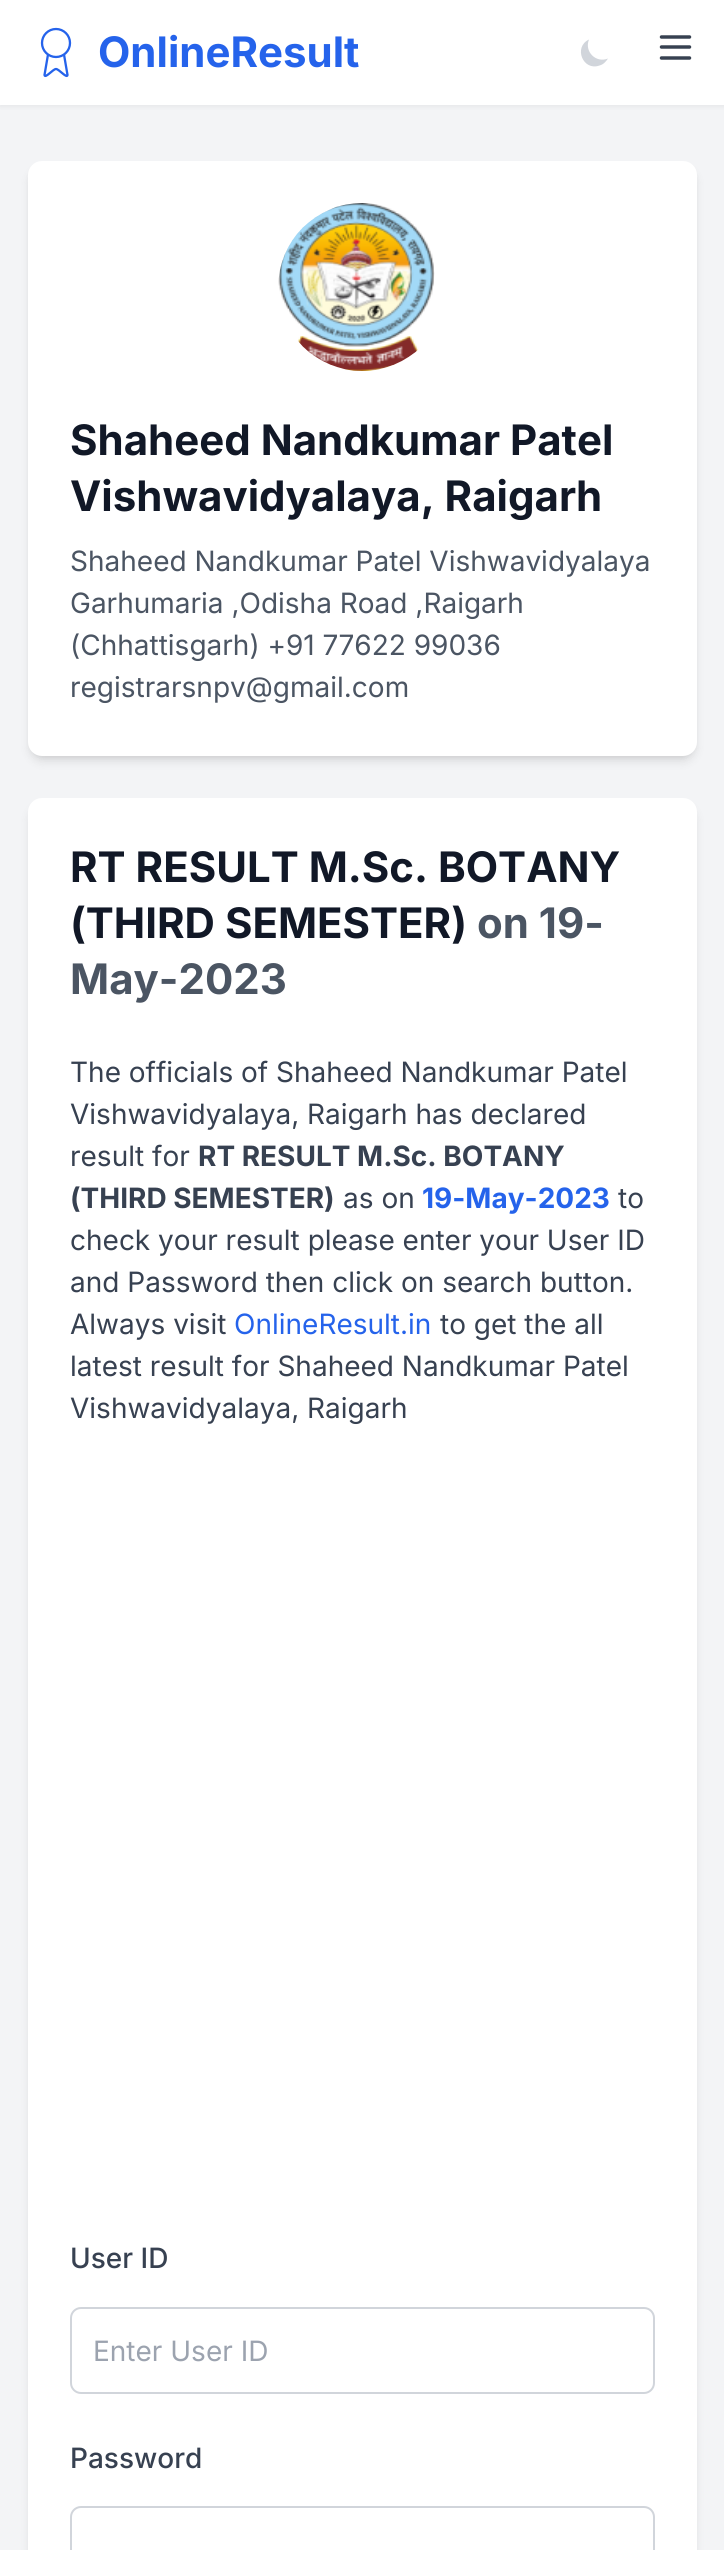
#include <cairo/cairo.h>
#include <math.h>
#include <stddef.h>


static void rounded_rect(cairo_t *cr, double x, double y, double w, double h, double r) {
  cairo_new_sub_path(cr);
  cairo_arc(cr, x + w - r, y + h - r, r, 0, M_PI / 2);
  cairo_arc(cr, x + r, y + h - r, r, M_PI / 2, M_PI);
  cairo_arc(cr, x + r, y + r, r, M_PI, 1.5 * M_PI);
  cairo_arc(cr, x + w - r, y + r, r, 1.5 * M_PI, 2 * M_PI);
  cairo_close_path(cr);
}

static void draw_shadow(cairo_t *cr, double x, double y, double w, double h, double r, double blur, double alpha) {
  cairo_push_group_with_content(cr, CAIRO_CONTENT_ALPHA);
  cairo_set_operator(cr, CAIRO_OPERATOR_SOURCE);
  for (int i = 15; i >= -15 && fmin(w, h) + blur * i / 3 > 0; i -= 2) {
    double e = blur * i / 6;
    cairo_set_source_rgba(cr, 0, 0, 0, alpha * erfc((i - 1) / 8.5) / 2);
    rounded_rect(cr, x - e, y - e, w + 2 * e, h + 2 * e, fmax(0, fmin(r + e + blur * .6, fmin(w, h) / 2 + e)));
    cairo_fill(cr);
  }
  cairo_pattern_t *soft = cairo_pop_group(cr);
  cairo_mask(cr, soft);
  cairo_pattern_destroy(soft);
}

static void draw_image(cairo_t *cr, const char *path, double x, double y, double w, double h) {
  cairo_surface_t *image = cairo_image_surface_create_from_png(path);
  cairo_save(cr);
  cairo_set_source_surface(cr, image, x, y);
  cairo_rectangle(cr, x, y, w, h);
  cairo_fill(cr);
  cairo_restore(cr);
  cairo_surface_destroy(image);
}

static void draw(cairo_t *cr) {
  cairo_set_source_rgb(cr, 243 / 255.0, 244 / 255.0, 246 / 255.0);
  cairo_paint(cr);
  cairo_set_source_rgb(cr, 0, 0, 0);
  draw_shadow(cr, 0, 2, 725, 105, 0, 2, 0.05);
  cairo_set_source_rgb(cr, 1, 1, 1);
  cairo_rectangle(cr, 0, 0, 724, 105);
  cairo_fill(cr);
  cairo_new_path(cr);
  cairo_move_to(cr, 64, 54.5);
  cairo_line_to(cr, 67.5, 75);
  cairo_curve_to(cr, 67, 79, 59, 69, 56, 69);
  cairo_curve_to(cr, 53, 69, 45, 79, 44.5, 75);
  cairo_line_to(cr, 48, 54.5);
  cairo_set_source_rgb(cr, 37 / 255.0, 99 / 255.0, 235 / 255.0);
  cairo_set_line_width(cr, 2.3);
  cairo_stroke(cr);
  cairo_arc(cr, 56, 43, 14, 0, 2 * M_PI);
  cairo_stroke(cr);
  cairo_set_source_rgb(cr, 209 / 255.0, 213 / 255.0, 219 / 255.0);
  cairo_new_path(cr);
  cairo_move_to(cr, 608, 58.5);
  cairo_curve_to(cr, 596, 63.5, 584, 51.5, 589, 39.5);
  cairo_curve_to(cr, 573, 47, 583, 71.5, 599.5, 65.5);
  cairo_curve_to(cr, 603.5, 64.5, 606, 61.5, 608, 58.5);
  cairo_close_path(cr);
  cairo_fill(cr);
  cairo_new_path(cr);
  cairo_move_to(cr, 661.5, 37);
  cairo_line_to(cr, 689.5, 37);
  cairo_move_to(cr, 661.5, 47);
  cairo_line_to(cr, 689.5, 47);
  cairo_move_to(cr, 661.5, 58);
  cairo_line_to(cr, 689.5, 58);
  cairo_set_source_rgb(cr, 55 / 255.0, 65 / 255.0, 81 / 255.0);
  cairo_set_line_width(cr, 3.5);
  cairo_set_line_cap(cr, CAIRO_LINE_CAP_ROUND);
  cairo_set_line_join(cr, CAIRO_LINE_JOIN_ROUND);
  cairo_stroke(cr);
  cairo_set_source_rgb(cr, 0, 0, 0);
  draw_shadow(cr, 32, 168, 661, 588, 11, 3.5, 0.1);
  draw_shadow(cr, 30, 170, 665, 591, 12, 5, 0.1);
  cairo_set_source_rgb(cr, 1, 1, 1);
  rounded_rect(cr, 28, 161, 669, 595, 14);
  cairo_fill(cr);
  draw_image(cr, "images/1.png", 278, 203, 157, 168);
  cairo_set_source_rgb(cr, 0, 0, 0);
  draw_shadow(cr, 30, 807, 665, 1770, 12, 5, 0.1);
  cairo_set_source_rgb(cr, 1, 1, 1);
  rounded_rect(cr, 28, 798, 669, 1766, 14);
  cairo_fill(cr);
  rounded_rect(cr, 71, 2308, 583, 85, 10);
  cairo_set_source_rgb(cr, 209 / 255.0, 213 / 255.0, 219 / 255.0);
  cairo_set_line_width(cr, 2);
  cairo_set_line_cap(cr, CAIRO_LINE_CAP_BUTT);
  cairo_set_line_join(cr, CAIRO_LINE_JOIN_MITER);
  cairo_stroke(cr);
  rounded_rect(cr, 71, 2507, 583, 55, 10);
  cairo_stroke(cr);
  cairo_select_font_face(cr, "Inter", CAIRO_FONT_SLANT_NORMAL, CAIRO_FONT_WEIGHT_BOLD);
  cairo_set_font_size(cr, 42);
  cairo_set_source_rgb(cr, 37 / 255.0, 99 / 255.0, 235 / 255.0);
  cairo_move_to(cr, 98, 67);
  cairo_show_text(cr, "OnlineResult");
  cairo_set_source_rgb(cr, 17 / 255.0, 24 / 255.0, 39 / 255.0);
  cairo_move_to(cr, 70, 455);
  cairo_show_text(cr, "Shaheed Nandkumar Patel");
  cairo_move_to(cr, 70, 511);
  cairo_show_text(cr, "Vishwavidyalaya, Raigarh");
  cairo_select_font_face(cr, "Inter", CAIRO_FONT_SLANT_NORMAL, CAIRO_FONT_WEIGHT_NORMAL);
  cairo_set_font_size(cr, 28);
  cairo_set_source_rgb(cr, 75 / 255.0, 85 / 255.0, 99 / 255.0);
  cairo_move_to(cr, 70, 571);
  cairo_show_text(cr, "Shaheed Nandkumar Patel Vishwavidyalaya");
  cairo_move_to(cr, 70, 613);
  cairo_show_text(cr, "Garhumaria ,Odisha Road ,Raigarh");
  cairo_move_to(cr, 70, 655);
  cairo_show_text(cr, "(Chhattisgarh) +91 77622 99036");
  cairo_move_to(cr, 70, 697);
  cairo_show_text(cr, "registrarsnpv@gmail.com");
  cairo_select_font_face(cr, "Inter", CAIRO_FONT_SLANT_NORMAL, CAIRO_FONT_WEIGHT_BOLD);
  cairo_set_font_size(cr, 42);
  cairo_set_source_rgb(cr, 17 / 255.0, 24 / 255.0, 39 / 255.0);
  cairo_move_to(cr, 70, 882);
  cairo_show_text(cr, "RT RESULT M.Sc. BOTANY");
  cairo_move_to(cr, 70, 938);
  cairo_show_text(cr, "(THIRD SEMESTER)");
  cairo_set_source_rgb(cr, 75 / 255.0, 85 / 255.0, 99 / 255.0);
  cairo_move_to(cr, 477, 938);
  cairo_show_text(cr, "on 19-");
  cairo_move_to(cr, 70, 994);
  cairo_show_text(cr, "May-2023");
  cairo_select_font_face(cr, "Inter", CAIRO_FONT_SLANT_NORMAL, CAIRO_FONT_WEIGHT_NORMAL);
  cairo_set_font_size(cr, 28);
  cairo_set_source_rgb(cr, 55 / 255.0, 65 / 255.0, 81 / 255.0);
  cairo_move_to(cr, 70, 1082);
  cairo_show_text(cr, "The officials of Shaheed Nandkumar Patel");
  cairo_move_to(cr, 70, 1124);
  cairo_show_text(cr, "Vishwavidyalaya, Raigarh has declared");
  cairo_move_to(cr, 70, 1166);
  cairo_show_text(cr, "result for");
  cairo_select_font_face(cr, "Inter", CAIRO_FONT_SLANT_NORMAL, CAIRO_FONT_WEIGHT_BOLD);
  cairo_move_to(cr, 198, 1166);
  cairo_show_text(cr, "RT RESULT M.Sc. BOTANY");
  cairo_move_to(cr, 70, 1208);
  cairo_show_text(cr, "(THIRD SEMESTER)");
  cairo_select_font_face(cr, "Inter", CAIRO_FONT_SLANT_NORMAL, CAIRO_FONT_WEIGHT_NORMAL);
  cairo_move_to(cr, 343, 1208);
  cairo_show_text(cr, "as on");
  cairo_select_font_face(cr, "Inter", CAIRO_FONT_SLANT_NORMAL, CAIRO_FONT_WEIGHT_BOLD);
  cairo_set_source_rgb(cr, 37 / 255.0, 99 / 255.0, 235 / 255.0);
  cairo_move_to(cr, 422, 1208);
  cairo_show_text(cr, "19-May-2023");
  cairo_select_font_face(cr, "Inter", CAIRO_FONT_SLANT_NORMAL, CAIRO_FONT_WEIGHT_NORMAL);
  cairo_set_source_rgb(cr, 55 / 255.0, 65 / 255.0, 81 / 255.0);
  cairo_move_to(cr, 618, 1208);
  cairo_show_text(cr, "to");
  cairo_move_to(cr, 70, 1250);
  cairo_show_text(cr, "check your result please enter your User ID");
  cairo_move_to(cr, 70, 1292);
  cairo_show_text(cr, "and Password then click on search button.");
  cairo_move_to(cr, 70, 1334);
  cairo_show_text(cr, "Always visit");
  cairo_set_source_rgb(cr, 37 / 255.0, 99 / 255.0, 235 / 255.0);
  cairo_move_to(cr, 234, 1334);
  cairo_show_text(cr, "OnlineResult.in");
  cairo_set_source_rgb(cr, 55 / 255.0, 65 / 255.0, 81 / 255.0);
  cairo_move_to(cr, 440, 1334);
  cairo_show_text(cr, "to get the all");
  cairo_move_to(cr, 70, 1376);
  cairo_show_text(cr, "latest result for Shaheed Nandkumar Patel");
  cairo_move_to(cr, 70, 1418);
  cairo_show_text(cr, "Vishwavidyalaya, Raigarh");
  cairo_select_font_face(cr, "Inter Medium", CAIRO_FONT_SLANT_NORMAL, CAIRO_FONT_WEIGHT_NORMAL);
  cairo_move_to(cr, 70, 2268);
  cairo_show_text(cr, "User ID");
  cairo_select_font_face(cr, "Inter", CAIRO_FONT_SLANT_NORMAL, CAIRO_FONT_WEIGHT_NORMAL);
  cairo_set_source_rgb(cr, 156 / 255.0, 163 / 255.0, 175 / 255.0);
  cairo_move_to(cr, 93, 2361);
  cairo_show_text(cr, "Enter User ID");
  cairo_select_font_face(cr, "Inter Medium", CAIRO_FONT_SLANT_NORMAL, CAIRO_FONT_WEIGHT_NORMAL);
  cairo_set_source_rgb(cr, 55 / 255.0, 65 / 255.0, 81 / 255.0);
  cairo_move_to(cr, 70, 2468);
  cairo_show_text(cr, "Password");
}

int main(void) {
  cairo_surface_t *surface = cairo_image_surface_create(CAIRO_FORMAT_RGB24, 724, 2550);
  cairo_t *cr = cairo_create(surface);
  cairo_font_options_t *options = cairo_font_options_create();
  cairo_font_options_set_hint_metrics(options, CAIRO_HINT_METRICS_OFF);
  cairo_font_options_set_hint_style(options, CAIRO_HINT_STYLE_NONE);
  cairo_set_font_options(cr, options);
  cairo_set_miter_limit(cr, 4);
  draw(cr);
  cairo_surface_write_to_png(surface, "out.png");
  cairo_font_options_destroy(options);
  cairo_destroy(cr);
  cairo_surface_destroy(surface);
  return 0;
}
